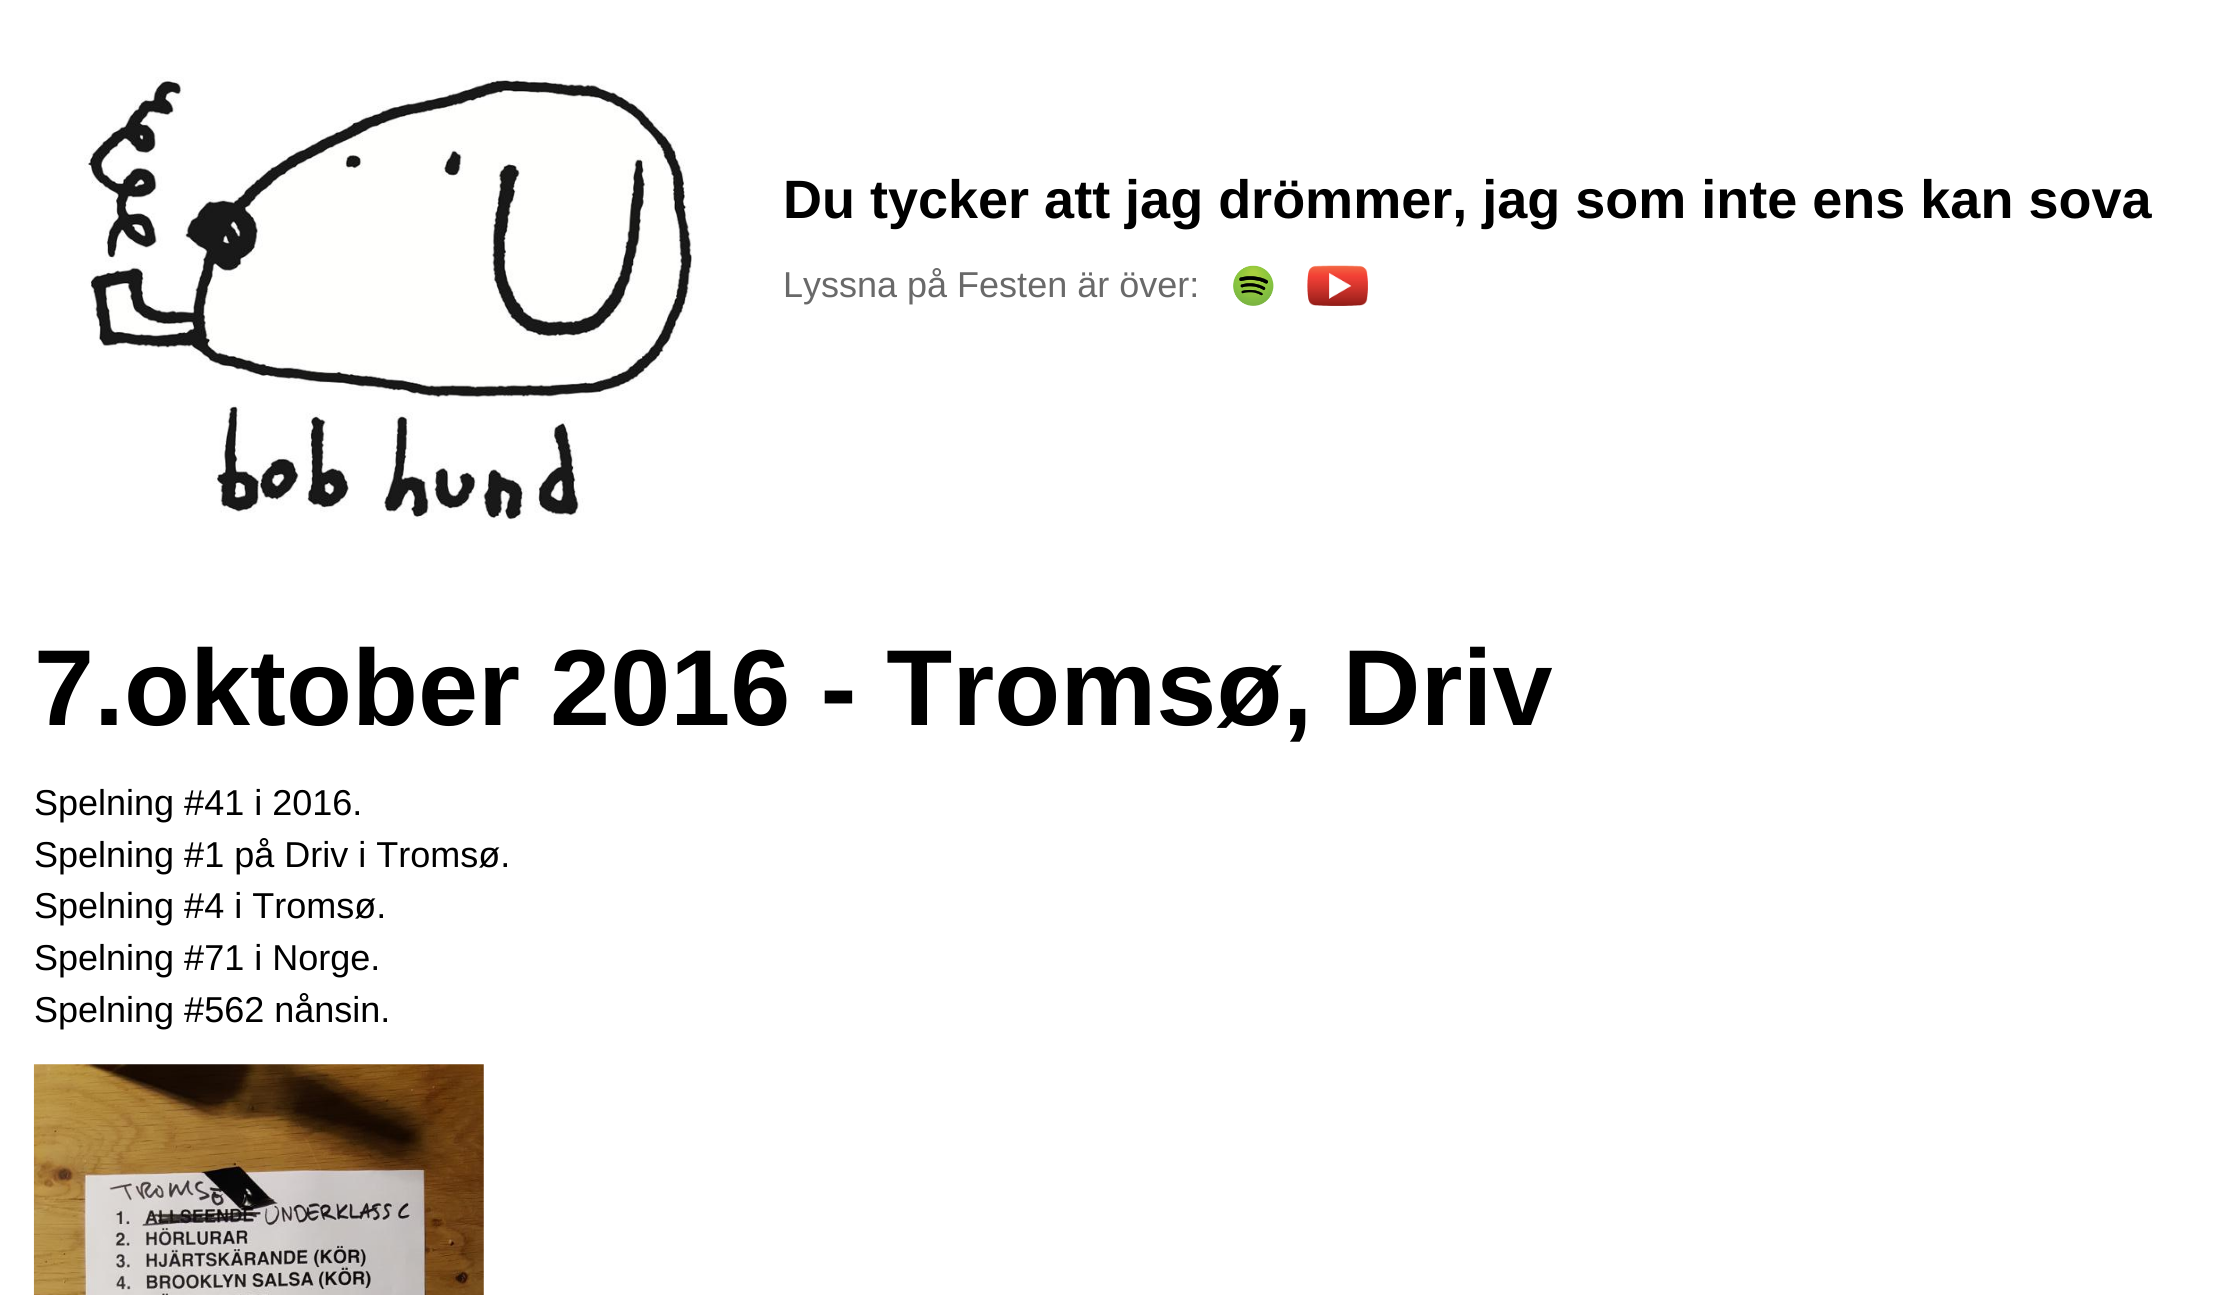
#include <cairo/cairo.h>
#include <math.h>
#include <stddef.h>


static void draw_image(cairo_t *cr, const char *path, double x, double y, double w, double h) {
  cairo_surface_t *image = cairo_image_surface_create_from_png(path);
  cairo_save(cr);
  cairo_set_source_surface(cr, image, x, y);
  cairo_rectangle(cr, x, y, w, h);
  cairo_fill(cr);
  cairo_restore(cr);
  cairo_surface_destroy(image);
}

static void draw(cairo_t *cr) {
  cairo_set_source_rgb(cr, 1, 1, 1);
  cairo_paint(cr);
  draw_image(cr, "images/1.png", 84, 77, 608, 443);
  draw_image(cr, "images/2.png", 1233, 265, 41, 41);
  draw_image(cr, "images/3.png", 1307, 265, 61, 41);
  draw_image(cr, "images/4.png", 33, 1064, 451, 231);
  cairo_select_font_face(cr, "Liberation Sans", CAIRO_FONT_SLANT_NORMAL, CAIRO_FONT_WEIGHT_BOLD);
  cairo_set_font_size(cr, 54);
  cairo_set_source_rgb(cr, 0, 0, 0);
  cairo_move_to(cr, 783, 218);
  cairo_show_text(cr, "Du tycker att jag drömmer, jag som inte ens kan sova");
  cairo_select_font_face(cr, "Liberation Sans", CAIRO_FONT_SLANT_NORMAL, CAIRO_FONT_WEIGHT_NORMAL);
  cairo_set_font_size(cr, 36);
  cairo_set_source_rgb(cr, 105 / 255.0, 105 / 255.0, 105 / 255.0);
  cairo_move_to(cr, 783, 297);
  cairo_show_text(cr, "Lyssna på Festen är över:");
  cairo_select_font_face(cr, "Liberation Sans", CAIRO_FONT_SLANT_NORMAL, CAIRO_FONT_WEIGHT_BOLD);
  cairo_set_font_size(cr, 108);
  cairo_set_source_rgb(cr, 0, 0, 0);
  cairo_move_to(cr, 34, 725);
  cairo_show_text(cr, "7.oktober 2016 - Tromsø, Driv");
  cairo_select_font_face(cr, "Liberation Sans", CAIRO_FONT_SLANT_NORMAL, CAIRO_FONT_WEIGHT_NORMAL);
  cairo_set_font_size(cr, 36);
  cairo_move_to(cr, 34, 815);
  cairo_show_text(cr, "Spelning #41 i 2016.");
  cairo_move_to(cr, 34, 867);
  cairo_show_text(cr, "Spelning #1 på Driv i Tromsø.");
  cairo_move_to(cr, 34, 918);
  cairo_show_text(cr, "Spelning #4 i Tromsø.");
  cairo_move_to(cr, 34, 970);
  cairo_show_text(cr, "Spelning #71 i Norge.");
  cairo_move_to(cr, 34, 1022);
  cairo_show_text(cr, "Spelning #562 nånsin.");
}

int main(void) {
  cairo_surface_t *surface = cairo_image_surface_create(CAIRO_FORMAT_RGB24, 2234, 1295);
  cairo_t *cr = cairo_create(surface);
  cairo_font_options_t *options = cairo_font_options_create();
  cairo_font_options_set_hint_metrics(options, CAIRO_HINT_METRICS_OFF);
  cairo_font_options_set_hint_style(options, CAIRO_HINT_STYLE_NONE);
  cairo_set_font_options(cr, options);
  cairo_set_miter_limit(cr, 4);
  draw(cr);
  cairo_surface_write_to_png(surface, "out.png");
  cairo_font_options_destroy(options);
  cairo_destroy(cr);
  cairo_surface_destroy(surface);
  return 0;
}
